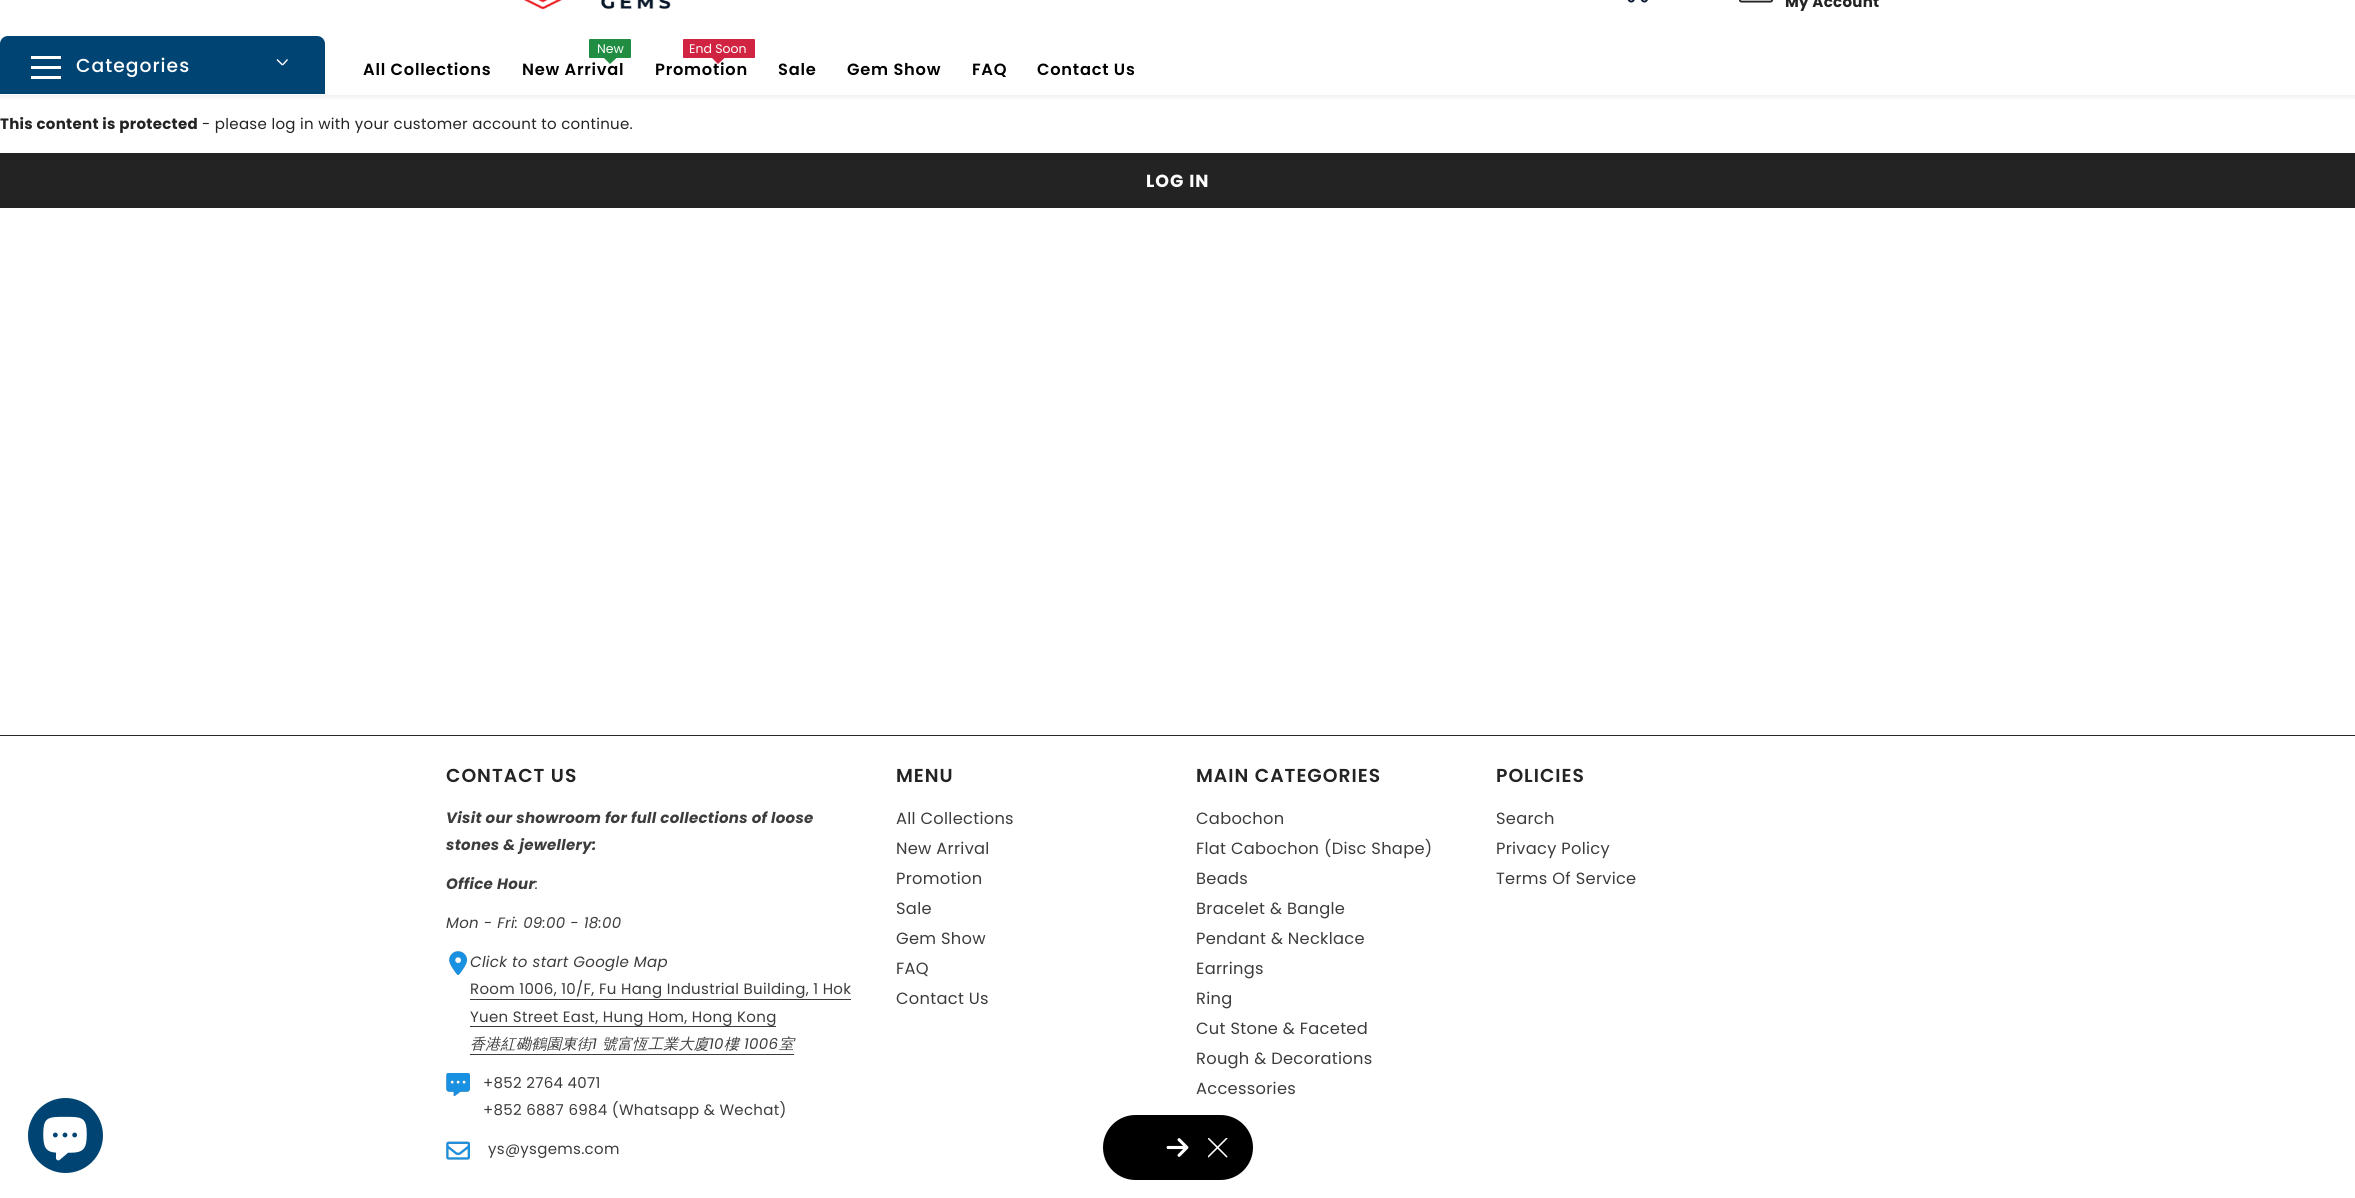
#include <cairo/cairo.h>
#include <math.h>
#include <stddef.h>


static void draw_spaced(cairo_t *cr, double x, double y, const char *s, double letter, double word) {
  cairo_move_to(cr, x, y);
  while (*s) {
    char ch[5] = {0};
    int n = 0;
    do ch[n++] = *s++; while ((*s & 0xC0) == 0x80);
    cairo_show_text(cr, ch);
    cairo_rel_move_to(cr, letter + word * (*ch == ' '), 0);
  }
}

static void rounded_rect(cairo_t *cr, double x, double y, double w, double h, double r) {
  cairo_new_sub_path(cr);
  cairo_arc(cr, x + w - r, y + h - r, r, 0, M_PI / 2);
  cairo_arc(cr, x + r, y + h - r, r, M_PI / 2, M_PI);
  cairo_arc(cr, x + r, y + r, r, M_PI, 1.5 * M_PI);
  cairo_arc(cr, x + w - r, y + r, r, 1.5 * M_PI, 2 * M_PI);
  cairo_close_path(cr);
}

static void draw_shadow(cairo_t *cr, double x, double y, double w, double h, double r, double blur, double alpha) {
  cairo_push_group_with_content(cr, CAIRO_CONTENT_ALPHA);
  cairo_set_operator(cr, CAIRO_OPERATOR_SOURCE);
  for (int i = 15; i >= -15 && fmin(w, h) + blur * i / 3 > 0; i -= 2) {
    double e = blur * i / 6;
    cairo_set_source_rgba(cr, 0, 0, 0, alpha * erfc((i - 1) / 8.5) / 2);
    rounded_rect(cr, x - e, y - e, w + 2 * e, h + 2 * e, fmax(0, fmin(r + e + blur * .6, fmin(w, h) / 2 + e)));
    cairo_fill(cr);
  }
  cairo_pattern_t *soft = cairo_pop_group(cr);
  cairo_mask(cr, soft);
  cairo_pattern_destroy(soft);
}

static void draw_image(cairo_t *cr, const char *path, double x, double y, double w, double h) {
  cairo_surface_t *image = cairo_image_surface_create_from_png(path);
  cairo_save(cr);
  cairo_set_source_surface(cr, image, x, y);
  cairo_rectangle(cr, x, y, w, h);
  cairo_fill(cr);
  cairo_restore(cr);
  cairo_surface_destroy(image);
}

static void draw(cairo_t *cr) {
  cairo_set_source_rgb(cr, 1, 1, 1);
  cairo_paint(cr);
  cairo_save(cr);
  cairo_rectangle(cr, 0, 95, 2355, 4);
  cairo_clip(cr);
  cairo_set_source_rgb(cr, 0, 0, 0);
  draw_shadow(cr, 0, 36, 2355, 60, 0, 4, 0.1);
  cairo_restore(cr);
  cairo_set_source_rgb(cr, 1, 1, 1);
  cairo_rectangle(cr, 0, 31, 2355, 4);
  cairo_fill(cr);
  draw_image(cr, "images/1.png", 523, 0, 148, 10);
  draw_image(cr, "images/2.png", 1627, 0, 21, 3);
  draw_image(cr, "images/3.png", 1739, 0, 35, 3);
  cairo_set_source_rgb(cr, 0, 68 / 255.0, 115 / 255.0);
  cairo_new_path(cr);
  cairo_move_to(cr, 8, 36);
  cairo_line_to(cr, 317, 36);
  cairo_curve_to(cr, 321.5, 36, 325, 39.5, 325, 44);
  cairo_line_to(cr, 325, 94);
  cairo_line_to(cr, 0, 94);
  cairo_line_to(cr, 0, 44);
  cairo_curve_to(cr, 0, 39.5, 3.5, 36, 8, 36);
  cairo_close_path(cr);
  cairo_fill(cr);
  cairo_set_source_rgb(cr, 1, 1, 1);
  cairo_rectangle(cr, 31, 66, 30, 3);
  cairo_fill(cr);
  cairo_rectangle(cr, 31, 56, 30, 3);
  cairo_fill(cr);
  cairo_rectangle(cr, 31, 76, 30, 3);
  cairo_fill(cr);
  cairo_new_path(cr);
  cairo_move_to(cr, 288, 60);
  cairo_line_to(cr, 283, 65.5);
  cairo_line_to(cr, 282, 64.5);
  cairo_line_to(cr, 287, 59);
  cairo_close_path(cr);
  cairo_fill(cr);
  cairo_new_path(cr);
  cairo_move_to(cr, 277.5, 59);
  cairo_line_to(cr, 283, 64.5);
  cairo_line_to(cr, 282, 65.5);
  cairo_line_to(cr, 276.5, 60);
  cairo_close_path(cr);
  cairo_fill(cr);
  cairo_set_source_rgb(cr, 32 / 255.0, 141 / 255.0, 66 / 255.0);
  rounded_rect(cr, 589, 39, 42, 19, 1);
  cairo_fill(cr);
  cairo_set_source_rgb(cr, 209 / 255.0, 36 / 255.0, 66 / 255.0);
  rounded_rect(cr, 683, 39, 72, 19, 1);
  cairo_fill(cr);
  cairo_set_source_rgb(cr, 35 / 255.0, 35 / 255.0, 35 / 255.0);
  cairo_rectangle(cr, 0, 153, 2355, 55);
  cairo_fill(cr);
  cairo_set_source_rgb(cr, 40 / 255.0, 40 / 255.0, 40 / 255.0);
  cairo_rectangle(cr, 0, 735, 2355, 1);
  cairo_fill(cr);
  draw_image(cr, "images/4.png", 449, 951, 19, 24);
  cairo_set_source_rgb(cr, 60 / 255.0, 60 / 255.0, 60 / 255.0);
  cairo_rectangle(cr, 470, 999, 381, 1);
  cairo_fill(cr);
  cairo_rectangle(cr, 470, 1026, 306, 1);
  cairo_fill(cr);
  cairo_rectangle(cr, 470, 1054, 324, 1);
  cairo_fill(cr);
  draw_image(cr, "images/5.png", 446, 1073, 24, 23);
  draw_image(cr, "images/6.png", 446, 1141, 24, 19);
  cairo_set_source_rgb(cr, 0, 68 / 255.0, 115 / 255.0);
  cairo_arc(cr, 65.5, 1135.5, 37.5, 0, 2 * M_PI);
  cairo_fill(cr);
  draw_image(cr, "images/7.png", 43, 1116, 44, 45);
  cairo_set_source_rgb(cr, 0, 0, 0);
  rounded_rect(cr, 1103, 1115, 150, 65, 32.5);
  cairo_fill(cr);
  draw_image(cr, "images/8.png", 1166, 1138, 23, 19);
  draw_image(cr, "images/9.png", 1208, 1138, 20, 20);
  cairo_select_font_face(cr, "Poppins", CAIRO_FONT_SLANT_NORMAL, CAIRO_FONT_WEIGHT_BOLD);
  cairo_set_font_size(cr, 15);
  cairo_set_source_rgb(cr, 35 / 255.0, 35 / 255.0, 35 / 255.0);
  draw_spaced(cr, 1785, 7, "My Account", 0.3, 0);
  cairo_select_font_face(cr, "Poppins Medium", CAIRO_FONT_SLANT_NORMAL, CAIRO_FONT_WEIGHT_NORMAL);
  cairo_set_font_size(cr, 18.75);
  cairo_set_source_rgb(cr, 1, 1, 1);
  draw_spaced(cr, 76, 72, "Categories", 1, 0);
  cairo_select_font_face(cr, "Poppins SemiBold", CAIRO_FONT_SLANT_NORMAL, CAIRO_FONT_WEIGHT_NORMAL);
  cairo_set_font_size(cr, 16.25);
  cairo_set_source_rgb(cr, 0, 0, 0);
  draw_spaced(cr, 363, 75, "All Collections", 0.75, 0);
  cairo_select_font_face(cr, "Poppins", CAIRO_FONT_SLANT_NORMAL, CAIRO_FONT_WEIGHT_NORMAL);
  cairo_set_font_size(cr, 12.5);
  cairo_set_source_rgb(cr, 1, 1, 1);
  cairo_move_to(cr, 597, 53);
  cairo_show_text(cr, "New");
  cairo_select_font_face(cr, "Poppins SemiBold", CAIRO_FONT_SLANT_NORMAL, CAIRO_FONT_WEIGHT_NORMAL);
  cairo_set_font_size(cr, 16.25);
  cairo_set_source_rgb(cr, 0, 0, 0);
  draw_spaced(cr, 522, 75, "New Arrival", 0.75, 0);
  cairo_set_source_rgb(cr, 32 / 255.0, 141 / 255.0, 66 / 255.0);
  cairo_new_path(cr);
  cairo_move_to(cr, 604, 58);
  cairo_line_to(cr, 616.5, 58);
  cairo_line_to(cr, 610, 64);
  cairo_close_path(cr);
  cairo_fill(cr);
  cairo_select_font_face(cr, "Poppins", CAIRO_FONT_SLANT_NORMAL, CAIRO_FONT_WEIGHT_NORMAL);
  cairo_set_font_size(cr, 12.5);
  cairo_set_source_rgb(cr, 1, 1, 1);
  cairo_move_to(cr, 689, 53);
  cairo_show_text(cr, "End Soon");
  cairo_select_font_face(cr, "Poppins SemiBold", CAIRO_FONT_SLANT_NORMAL, CAIRO_FONT_WEIGHT_NORMAL);
  cairo_set_font_size(cr, 16.25);
  cairo_set_source_rgb(cr, 0, 0, 0);
  draw_spaced(cr, 655, 75, "Promotion", 0.75, 0);
  cairo_set_source_rgb(cr, 209 / 255.0, 36 / 255.0, 66 / 255.0);
  cairo_new_path(cr);
  cairo_move_to(cr, 712, 58);
  cairo_line_to(cr, 724.5, 58);
  cairo_line_to(cr, 718, 64);
  cairo_close_path(cr);
  cairo_fill(cr);
  cairo_set_source_rgb(cr, 0, 0, 0);
  draw_spaced(cr, 778, 75, "Sale", 0.75, 0);
  draw_spaced(cr, 847, 75, "Gem Show", 0.75, 0);
  draw_spaced(cr, 972, 75, "FAQ", 0.75, 0);
  draw_spaced(cr, 1037, 75, "Contact Us", 0.75, 0);
  cairo_select_font_face(cr, "Poppins", CAIRO_FONT_SLANT_NORMAL, CAIRO_FONT_WEIGHT_BOLD);
  cairo_set_font_size(cr, 15);
  cairo_set_source_rgb(cr, 35 / 255.0, 35 / 255.0, 35 / 255.0);
  draw_spaced(cr, 0, 129, "This content is protected", 0.3, 0);
  cairo_select_font_face(cr, "Poppins", CAIRO_FONT_SLANT_NORMAL, CAIRO_FONT_WEIGHT_NORMAL);
  draw_spaced(cr, 202, 129, "- please log in with your customer account to continue.", 0.3, 0);
  cairo_select_font_face(cr, "Poppins", CAIRO_FONT_SLANT_NORMAL, CAIRO_FONT_WEIGHT_BOLD);
  cairo_set_font_size(cr, 17.5);
  cairo_set_source_rgb(cr, 1, 1, 1);
  draw_spaced(cr, 1146, 187, "LOG IN", 1, 0);
  cairo_select_font_face(cr, "Poppins SemiBold", CAIRO_FONT_SLANT_NORMAL, CAIRO_FONT_WEIGHT_NORMAL);
  cairo_set_font_size(cr, 18.75);
  cairo_set_source_rgb(cr, 35 / 255.0, 35 / 255.0, 35 / 255.0);
  draw_spaced(cr, 446, 782, "CONTACT US", 1, 0);
  cairo_select_font_face(cr, "Poppins", CAIRO_FONT_SLANT_ITALIC, CAIRO_FONT_WEIGHT_BOLD);
  cairo_set_font_size(cr, 15);
  cairo_set_source_rgb(cr, 60 / 255.0, 60 / 255.0, 60 / 255.0);
  draw_spaced(cr, 446, 823, "Visit our showroom for full collections of loose", 0.3, 0);
  draw_spaced(cr, 446, 850, "stones & jewellery:", 0.3, 0);
  draw_spaced(cr, 446, 889, "Office Hour", 0.3, 0);
  cairo_select_font_face(cr, "Poppins", CAIRO_FONT_SLANT_ITALIC, CAIRO_FONT_WEIGHT_NORMAL);
  draw_spaced(cr, 535, 889, ":", 0.3, 0);
  draw_spaced(cr, 446, 928, "Mon - Fri: 09:00 - 18:00", 0.3, 0);
  draw_spaced(cr, 470, 967, "Click to start Google Map", 0.3, 0);
  cairo_select_font_face(cr, "Poppins", CAIRO_FONT_SLANT_NORMAL, CAIRO_FONT_WEIGHT_NORMAL);
  draw_spaced(cr, 470, 994, "Room 1006, 10/F, Fu Hang Industrial Building, 1 Hok", 0.3, 0);
  draw_spaced(cr, 470, 1022, "Yuen Street East, Hung Hom, Hong Kong", 0.3, 0);
  cairo_select_font_face(cr, "WenQuanYi Zen Hei Medium", CAIRO_FONT_SLANT_ITALIC, CAIRO_FONT_WEIGHT_NORMAL);
  draw_spaced(cr, 470, 1049, "香港紅磡鶴園東街", 0.3, 0);
  cairo_select_font_face(cr, "Poppins", CAIRO_FONT_SLANT_ITALIC, CAIRO_FONT_WEIGHT_NORMAL);
  draw_spaced(cr, 592, 1049, "1", 0.3, 0);
  cairo_select_font_face(cr, "WenQuanYi Zen Hei Medium", CAIRO_FONT_SLANT_ITALIC, CAIRO_FONT_WEIGHT_NORMAL);
  draw_spaced(cr, 602, 1049, "號富恆工業大廈", 0.3, 0);
  cairo_select_font_face(cr, "Poppins", CAIRO_FONT_SLANT_ITALIC, CAIRO_FONT_WEIGHT_NORMAL);
  draw_spaced(cr, 709, 1049, "10", 0.3, 0);
  cairo_select_font_face(cr, "WenQuanYi Zen Hei Medium", CAIRO_FONT_SLANT_ITALIC, CAIRO_FONT_WEIGHT_NORMAL);
  draw_spaced(cr, 724, 1049, "樓", 0.3, 0);
  cairo_select_font_face(cr, "Poppins", CAIRO_FONT_SLANT_ITALIC, CAIRO_FONT_WEIGHT_NORMAL);
  draw_spaced(cr, 744, 1049, "1006", 0.3, 0);
  cairo_select_font_face(cr, "WenQuanYi Zen Hei Medium", CAIRO_FONT_SLANT_ITALIC, CAIRO_FONT_WEIGHT_NORMAL);
  draw_spaced(cr, 779, 1049, "室", 0.3, 0);
  cairo_select_font_face(cr, "Poppins", CAIRO_FONT_SLANT_NORMAL, CAIRO_FONT_WEIGHT_NORMAL);
  draw_spaced(cr, 483, 1088, "+852 2764 4071", 0.3, 0);
  draw_spaced(cr, 483, 1115, "+852 6887 6984 (Whatsapp & Wechat)", 0.3, 0);
  draw_spaced(cr, 488, 1154, "ys@ysgems.com", 0.3, 0);
  cairo_select_font_face(cr, "Poppins SemiBold", CAIRO_FONT_SLANT_NORMAL, CAIRO_FONT_WEIGHT_NORMAL);
  cairo_set_font_size(cr, 18.75);
  cairo_set_source_rgb(cr, 35 / 255.0, 35 / 255.0, 35 / 255.0);
  draw_spaced(cr, 896, 782, "MENU", 1, 0);
  cairo_select_font_face(cr, "Poppins", CAIRO_FONT_SLANT_NORMAL, CAIRO_FONT_WEIGHT_NORMAL);
  cairo_set_font_size(cr, 16.25);
  cairo_set_source_rgb(cr, 60 / 255.0, 60 / 255.0, 60 / 255.0);
  draw_spaced(cr, 896, 824, "All Collections", 0.3, 0);
  draw_spaced(cr, 896, 854, "New Arrival", 0.3, 0);
  draw_spaced(cr, 896, 884, "Promotion", 0.3, 0);
  draw_spaced(cr, 896, 914, "Sale", 0.3, 0);
  draw_spaced(cr, 896, 944, "Gem Show", 0.3, 0);
  draw_spaced(cr, 896, 974, "FAQ", 0.3, 0);
  draw_spaced(cr, 896, 1004, "Contact Us", 0.3, 0);
  cairo_select_font_face(cr, "Poppins SemiBold", CAIRO_FONT_SLANT_NORMAL, CAIRO_FONT_WEIGHT_NORMAL);
  cairo_set_font_size(cr, 18.75);
  cairo_set_source_rgb(cr, 35 / 255.0, 35 / 255.0, 35 / 255.0);
  draw_spaced(cr, 1196, 782, "MAIN CATEGORIES", 1, 0);
  cairo_select_font_face(cr, "Poppins", CAIRO_FONT_SLANT_NORMAL, CAIRO_FONT_WEIGHT_NORMAL);
  cairo_set_font_size(cr, 16.25);
  cairo_set_source_rgb(cr, 60 / 255.0, 60 / 255.0, 60 / 255.0);
  draw_spaced(cr, 1196, 824, "Cabochon", 0.3, 0);
  draw_spaced(cr, 1196, 854, "Flat Cabochon (Disc Shape)", 0.3, 0);
  draw_spaced(cr, 1196, 884, "Beads", 0.3, 0);
  draw_spaced(cr, 1196, 914, "Bracelet & Bangle", 0.3, 0);
  draw_spaced(cr, 1196, 944, "Pendant & Necklace", 0.3, 0);
  draw_spaced(cr, 1196, 974, "Earrings", 0.3, 0);
  draw_spaced(cr, 1196, 1004, "Ring", 0.3, 0);
  draw_spaced(cr, 1196, 1034, "Cut Stone & Faceted", 0.3, 0);
  draw_spaced(cr, 1196, 1064, "Rough & Decorations", 0.3, 0);
  draw_spaced(cr, 1196, 1094, "Accessories", 0.3, 0);
  cairo_select_font_face(cr, "Poppins SemiBold", CAIRO_FONT_SLANT_NORMAL, CAIRO_FONT_WEIGHT_NORMAL);
  cairo_set_font_size(cr, 18.75);
  cairo_set_source_rgb(cr, 35 / 255.0, 35 / 255.0, 35 / 255.0);
  draw_spaced(cr, 1496, 782, "POLICIES", 1, 0);
  cairo_select_font_face(cr, "Poppins", CAIRO_FONT_SLANT_NORMAL, CAIRO_FONT_WEIGHT_NORMAL);
  cairo_set_font_size(cr, 16.25);
  cairo_set_source_rgb(cr, 60 / 255.0, 60 / 255.0, 60 / 255.0);
  draw_spaced(cr, 1496, 824, "Search", 0.3, 0);
  draw_spaced(cr, 1496, 854, "Privacy Policy", 0.3, 0);
  draw_spaced(cr, 1496, 884, "Terms Of Service", 0.3, 0);
}

int main(void) {
  cairo_surface_t *surface = cairo_image_surface_create(CAIRO_FORMAT_RGB24, 2355, 1198);
  cairo_t *cr = cairo_create(surface);
  cairo_font_options_t *options = cairo_font_options_create();
  cairo_font_options_set_hint_metrics(options, CAIRO_HINT_METRICS_OFF);
  cairo_font_options_set_hint_style(options, CAIRO_HINT_STYLE_NONE);
  cairo_set_font_options(cr, options);
  cairo_set_miter_limit(cr, 4);
  draw(cr);
  cairo_surface_write_to_png(surface, "out.png");
  cairo_font_options_destroy(options);
  cairo_destroy(cr);
  cairo_surface_destroy(surface);
  return 0;
}
